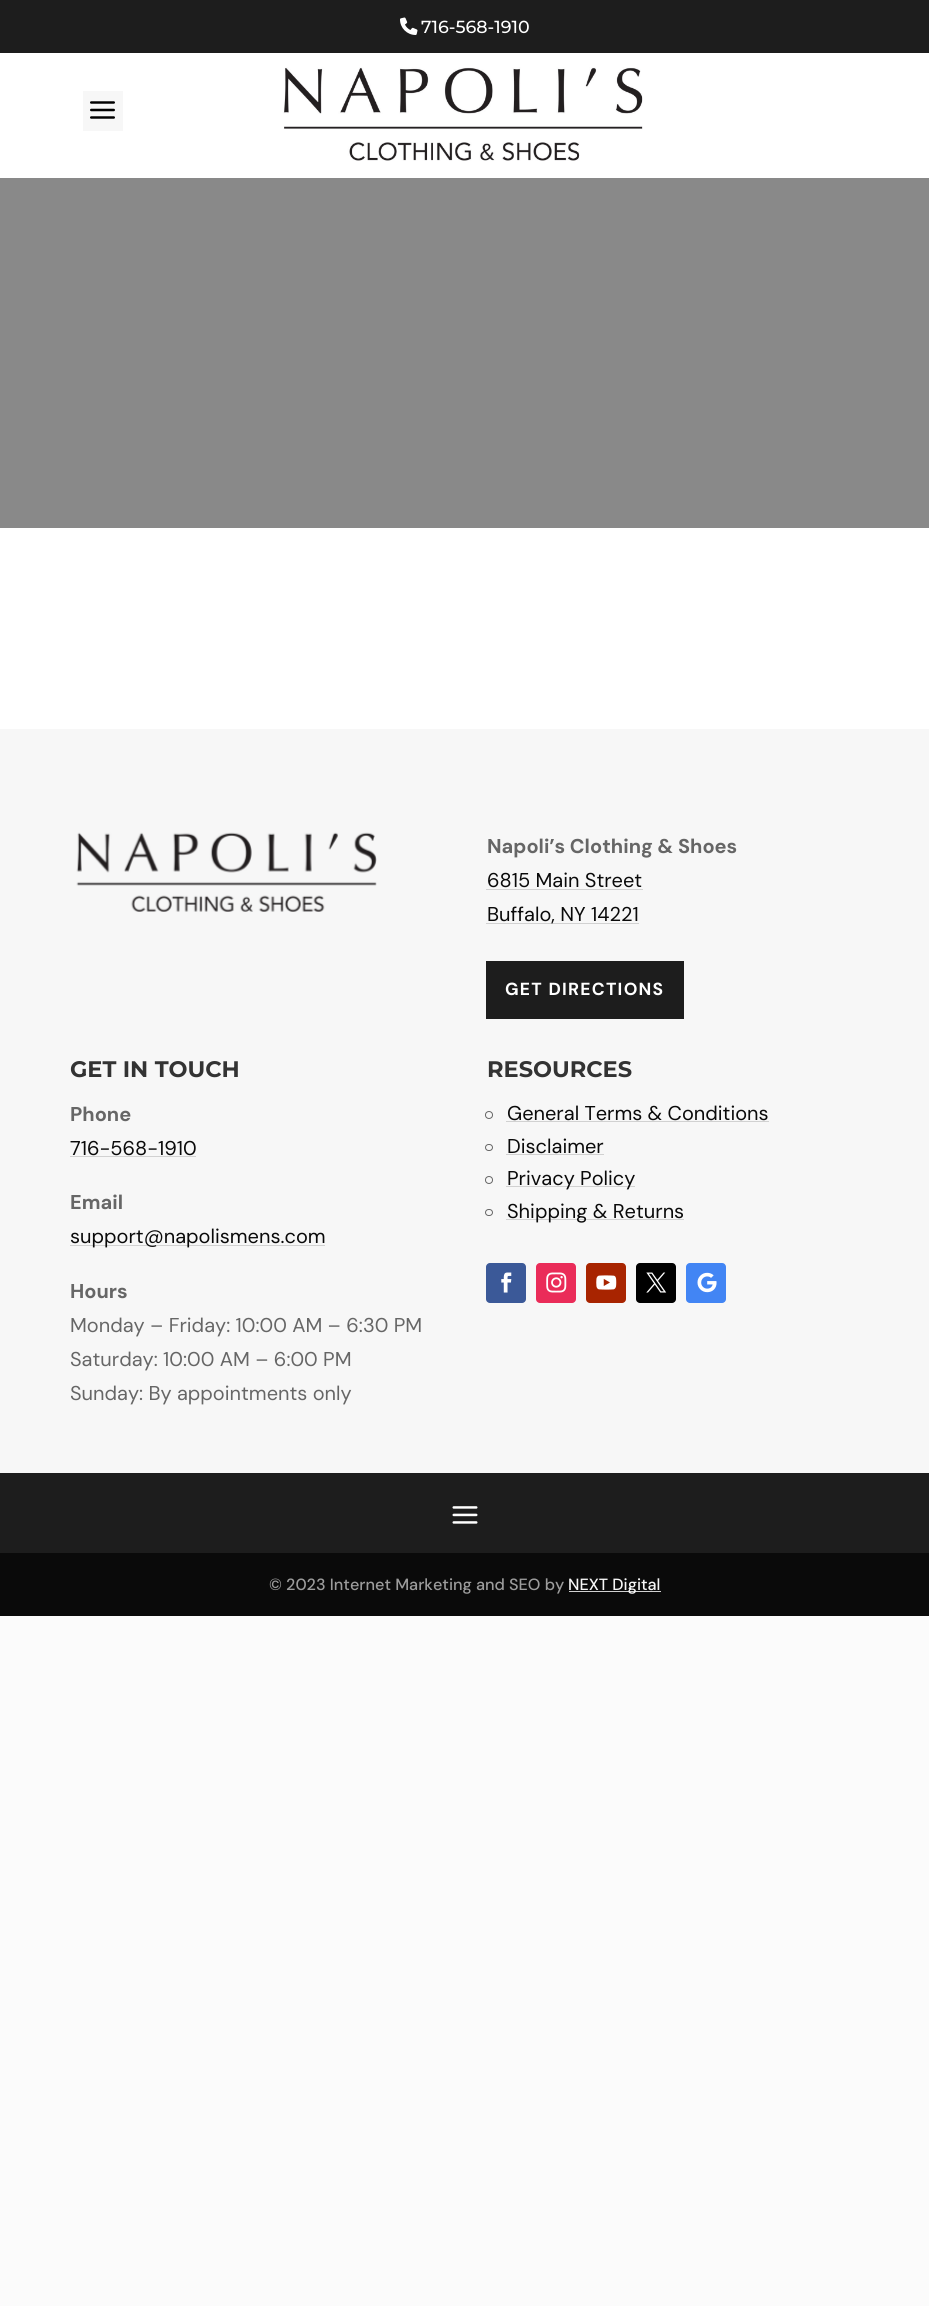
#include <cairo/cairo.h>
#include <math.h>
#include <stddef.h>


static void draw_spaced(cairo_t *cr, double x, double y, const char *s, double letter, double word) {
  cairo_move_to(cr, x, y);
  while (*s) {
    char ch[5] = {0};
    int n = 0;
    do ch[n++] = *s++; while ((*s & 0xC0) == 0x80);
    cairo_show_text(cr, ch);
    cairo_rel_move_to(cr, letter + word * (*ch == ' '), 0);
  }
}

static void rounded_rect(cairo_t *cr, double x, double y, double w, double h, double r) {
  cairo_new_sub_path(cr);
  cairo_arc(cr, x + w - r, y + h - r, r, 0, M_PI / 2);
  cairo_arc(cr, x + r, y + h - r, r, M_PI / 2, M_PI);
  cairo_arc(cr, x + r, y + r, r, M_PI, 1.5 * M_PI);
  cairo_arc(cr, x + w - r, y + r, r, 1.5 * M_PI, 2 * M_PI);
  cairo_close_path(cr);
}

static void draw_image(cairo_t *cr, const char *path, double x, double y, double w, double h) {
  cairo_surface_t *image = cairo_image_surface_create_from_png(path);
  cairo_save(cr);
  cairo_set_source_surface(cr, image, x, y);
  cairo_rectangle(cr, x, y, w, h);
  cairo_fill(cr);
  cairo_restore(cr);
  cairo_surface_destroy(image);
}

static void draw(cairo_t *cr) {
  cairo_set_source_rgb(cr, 251 / 255.0, 251 / 255.0, 251 / 255.0);
  cairo_paint(cr);
  cairo_set_source_rgb(cr, 29 / 255.0, 29 / 255.0, 29 / 255.0);
  cairo_rectangle(cr, 0, 0, 929, 53);
  cairo_fill(cr);
  draw_image(cr, "images/1.png", 400, 17, 18, 18);
  cairo_set_source_rgb(cr, 1, 1, 1);
  cairo_rectangle(cr, 0, 53, 929, 125);
  cairo_fill(cr);
  cairo_set_source_rgb(cr, 247 / 255.0, 247 / 255.0, 247 / 255.0);
  cairo_rectangle(cr, 83, 91, 40, 40);
  cairo_fill(cr);
  draw_image(cr, "images/2.png", 90, 101, 25, 18);
  draw_image(cr, "images/3.png", 283, 67, 360, 94);
  cairo_set_source_rgb(cr, 137 / 255.0, 137 / 255.0, 137 / 255.0);
  cairo_rectangle(cr, 0, 178, 929, 350);
  cairo_fill(cr);
  cairo_set_source_rgb(cr, 1, 1, 1);
  cairo_rectangle(cr, 0, 528, 929, 201);
  cairo_fill(cr);
  cairo_set_source_rgb(cr, 247 / 255.0, 247 / 255.0, 247 / 255.0);
  cairo_rectangle(cr, 0, 729, 929, 744);
  cairo_fill(cr);
  draw_image(cr, "images/4.png", 76, 832, 301, 80);
  cairo_set_source_rgb(cr, 209 / 255.0, 209 / 255.0, 209 / 255.0);
  cairo_rectangle(cr, 486, 889, 157, 1);
  cairo_fill(cr);
  cairo_rectangle(cr, 486, 923, 153, 1);
  cairo_fill(cr);
  cairo_set_source_rgb(cr, 29 / 255.0, 29 / 255.0, 29 / 255.0);
  cairo_rectangle(cr, 486, 961, 198, 58);
  cairo_fill(cr);
  cairo_set_source_rgb(cr, 209 / 255.0, 209 / 255.0, 209 / 255.0);
  cairo_rectangle(cr, 70, 1156, 126, 1);
  cairo_fill(cr);
  cairo_rectangle(cr, 70, 1245, 255, 1);
  cairo_fill(cr);
  cairo_arc(cr, 489, 1115, 3.5, 0, 2 * M_PI);
  cairo_set_source_rgb(cr, 102 / 255.0, 102 / 255.0, 102 / 255.0);
  cairo_set_line_width(cr, 1);
  cairo_stroke(cr);
  cairo_set_source_rgb(cr, 209 / 255.0, 209 / 255.0, 209 / 255.0);
  cairo_rectangle(cr, 506, 1121, 263, 1);
  cairo_fill(cr);
  rounded_rect(cr, 485.5, 1144.5, 7, 6, 3);
  cairo_set_source_rgb(cr, 102 / 255.0, 102 / 255.0, 102 / 255.0);
  cairo_stroke(cr);
  cairo_set_source_rgb(cr, 209 / 255.0, 209 / 255.0, 209 / 255.0);
  cairo_rectangle(cr, 506, 1154, 98, 1);
  cairo_fill(cr);
  cairo_arc(cr, 489, 1180, 3.5, 0, 2 * M_PI);
  cairo_set_source_rgb(cr, 102 / 255.0, 102 / 255.0, 102 / 255.0);
  cairo_stroke(cr);
  cairo_set_source_rgb(cr, 209 / 255.0, 209 / 255.0, 209 / 255.0);
  cairo_rectangle(cr, 506, 1186, 129, 1);
  cairo_fill(cr);
  rounded_rect(cr, 485.5, 1209.5, 7, 6, 3);
  cairo_set_source_rgb(cr, 102 / 255.0, 102 / 255.0, 102 / 255.0);
  cairo_stroke(cr);
  cairo_set_source_rgb(cr, 209 / 255.0, 209 / 255.0, 209 / 255.0);
  cairo_rectangle(cr, 506, 1219, 178, 1);
  cairo_fill(cr);
  cairo_set_source_rgb(cr, 59 / 255.0, 89 / 255.0, 152 / 255.0);
  rounded_rect(cr, 486, 1263, 40, 40, 4);
  cairo_fill(cr);
  draw_image(cr, "images/5.png", 501, 1272, 11, 21);
  cairo_set_source_rgb(cr, 234 / 255.0, 44 / 255.0, 89 / 255.0);
  rounded_rect(cr, 536, 1263, 40, 40, 4);
  cairo_fill(cr);
  draw_image(cr, "images/6.png", 546, 1272, 21, 21);
  cairo_set_source_rgb(cr, 168 / 255.0, 36 / 255.0, 0);
  rounded_rect(cr, 586, 1263, 40, 40, 4);
  cairo_fill(cr);
  draw_image(cr, "images/7.png", 596, 1275, 21, 15);
  cairo_set_source_rgb(cr, 0, 0, 0);
  rounded_rect(cr, 636, 1263, 40, 40, 4);
  cairo_fill(cr);
  draw_image(cr, "images/8.png", 646, 1272, 21, 21);
  cairo_set_source_rgb(cr, 66 / 255.0, 133 / 255.0, 244 / 255.0);
  rounded_rect(cr, 686, 1263, 40, 40, 4);
  cairo_fill(cr);
  draw_image(cr, "images/9.png", 697, 1272, 20, 21);
  cairo_set_source_rgb(cr, 29 / 255.0, 29 / 255.0, 29 / 255.0);
  cairo_rectangle(cr, 0, 1473, 929, 80);
  cairo_fill(cr);
  draw_image(cr, "images/10.png", 452, 1506, 26, 18);
  cairo_set_source_rgb(cr, 10 / 255.0, 10 / 255.0, 10 / 255.0);
  cairo_rectangle(cr, 0, 1553, 929, 63);
  cairo_fill(cr);
  cairo_set_source_rgb(cr, 209 / 255.0, 209 / 255.0, 209 / 255.0);
  cairo_rectangle(cr, 569, 1591, 92, 1);
  cairo_fill(cr);
  cairo_select_font_face(cr, "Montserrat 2 Thin", CAIRO_FONT_SLANT_NORMAL, CAIRO_FONT_WEIGHT_NORMAL);
  cairo_set_font_size(cr, 17.5);
  cairo_set_source_rgb(cr, 1, 1, 1);
  cairo_move_to(cr, 421, 33);
  cairo_show_text(cr, "716-568-1910");
  cairo_select_font_face(cr, "DM Sans", CAIRO_FONT_SLANT_NORMAL, CAIRO_FONT_WEIGHT_BOLD);
  cairo_set_font_size(cr, 20);
  cairo_set_source_rgb(cr, 102 / 255.0, 102 / 255.0, 102 / 255.0);
  cairo_move_to(cr, 487, 853);
  cairo_show_text(cr, "Napoli’s Clothing & Shoes");
  cairo_select_font_face(cr, "DM Sans", CAIRO_FONT_SLANT_NORMAL, CAIRO_FONT_WEIGHT_NORMAL);
  cairo_set_source_rgb(cr, 10 / 255.0, 10 / 255.0, 10 / 255.0);
  cairo_move_to(cr, 487, 887);
  cairo_show_text(cr, "6815 Main Street");
  cairo_move_to(cr, 487, 921);
  cairo_show_text(cr, "Buffalo, NY 14221");
  cairo_select_font_face(cr, "DM Sans", CAIRO_FONT_SLANT_NORMAL, CAIRO_FONT_WEIGHT_BOLD);
  cairo_set_font_size(cr, 17.5);
  cairo_set_source_rgb(cr, 1, 1, 1);
  draw_spaced(cr, 505, 995, "GET DIRECTIONS", 1.25, 0);
  cairo_select_font_face(cr, "Montserrat Thin", CAIRO_FONT_SLANT_NORMAL, CAIRO_FONT_WEIGHT_NORMAL);
  cairo_set_font_size(cr, 22.5);
  cairo_set_source_rgb(cr, 51 / 255.0, 51 / 255.0, 51 / 255.0);
  cairo_move_to(cr, 70, 1077);
  cairo_show_text(cr, "GET IN TOUCH");
  cairo_select_font_face(cr, "DM Sans", CAIRO_FONT_SLANT_NORMAL, CAIRO_FONT_WEIGHT_BOLD);
  cairo_set_font_size(cr, 20);
  cairo_set_source_rgb(cr, 102 / 255.0, 102 / 255.0, 102 / 255.0);
  cairo_move_to(cr, 70, 1121);
  cairo_show_text(cr, "Phone");
  cairo_select_font_face(cr, "DM Sans", CAIRO_FONT_SLANT_NORMAL, CAIRO_FONT_WEIGHT_NORMAL);
  cairo_set_source_rgb(cr, 10 / 255.0, 10 / 255.0, 10 / 255.0);
  cairo_move_to(cr, 70, 1155);
  cairo_show_text(cr, "716-568-1910");
  cairo_select_font_face(cr, "DM Sans", CAIRO_FONT_SLANT_NORMAL, CAIRO_FONT_WEIGHT_BOLD);
  cairo_set_source_rgb(cr, 102 / 255.0, 102 / 255.0, 102 / 255.0);
  cairo_move_to(cr, 70, 1209);
  cairo_show_text(cr, "Email");
  cairo_select_font_face(cr, "DM Sans", CAIRO_FONT_SLANT_NORMAL, CAIRO_FONT_WEIGHT_NORMAL);
  cairo_set_source_rgb(cr, 10 / 255.0, 10 / 255.0, 10 / 255.0);
  cairo_move_to(cr, 70, 1243);
  cairo_show_text(cr, "support@napolismens.com");
  cairo_select_font_face(cr, "DM Sans", CAIRO_FONT_SLANT_NORMAL, CAIRO_FONT_WEIGHT_BOLD);
  cairo_set_source_rgb(cr, 102 / 255.0, 102 / 255.0, 102 / 255.0);
  cairo_move_to(cr, 70, 1298);
  cairo_show_text(cr, "Hours");
  cairo_select_font_face(cr, "DM Sans", CAIRO_FONT_SLANT_NORMAL, CAIRO_FONT_WEIGHT_NORMAL);
  cairo_move_to(cr, 70, 1332);
  cairo_show_text(cr, "Monday – Friday: 10:00 AM – 6:30 PM");
  cairo_move_to(cr, 70, 1366);
  cairo_show_text(cr, "Saturday: 10:00 AM – 6:00 PM");
  cairo_move_to(cr, 70, 1400);
  cairo_show_text(cr, "Sunday: By appointments only");
  cairo_select_font_face(cr, "Montserrat Thin", CAIRO_FONT_SLANT_NORMAL, CAIRO_FONT_WEIGHT_NORMAL);
  cairo_set_font_size(cr, 22.5);
  cairo_set_source_rgb(cr, 51 / 255.0, 51 / 255.0, 51 / 255.0);
  cairo_move_to(cr, 487, 1077);
  cairo_show_text(cr, "RESOURCES");
  cairo_select_font_face(cr, "DM Sans", CAIRO_FONT_SLANT_NORMAL, CAIRO_FONT_WEIGHT_NORMAL);
  cairo_set_font_size(cr, 20);
  cairo_set_source_rgb(cr, 10 / 255.0, 10 / 255.0, 10 / 255.0);
  cairo_move_to(cr, 507, 1120);
  cairo_show_text(cr, "General Terms & Conditions");
  cairo_move_to(cr, 507, 1153);
  cairo_show_text(cr, "Disclaimer");
  cairo_move_to(cr, 507, 1185);
  cairo_show_text(cr, "Privacy Policy");
  cairo_move_to(cr, 507, 1218);
  cairo_show_text(cr, "Shipping & Returns");
  cairo_select_font_face(cr, "DM Sans Medium", CAIRO_FONT_SLANT_NORMAL, CAIRO_FONT_WEIGHT_NORMAL);
  cairo_set_font_size(cr, 16.25);
  cairo_set_source_rgb(cr, 156 / 255.0, 156 / 255.0, 156 / 255.0);
  cairo_move_to(cr, 269, 1590);
  cairo_show_text(cr, "© 2023 Internet Marketing and SEO by");
  cairo_set_source_rgb(cr, 247 / 255.0, 247 / 255.0, 247 / 255.0);
  cairo_move_to(cr, 568, 1590);
  cairo_show_text(cr, "NEXT Digital");
}

int main(void) {
  cairo_surface_t *surface = cairo_image_surface_create(CAIRO_FORMAT_RGB24, 929, 2306);
  cairo_t *cr = cairo_create(surface);
  cairo_font_options_t *options = cairo_font_options_create();
  cairo_font_options_set_hint_metrics(options, CAIRO_HINT_METRICS_OFF);
  cairo_font_options_set_hint_style(options, CAIRO_HINT_STYLE_NONE);
  cairo_set_font_options(cr, options);
  cairo_set_miter_limit(cr, 4);
  draw(cr);
  cairo_surface_write_to_png(surface, "out.png");
  cairo_font_options_destroy(options);
  cairo_destroy(cr);
  cairo_surface_destroy(surface);
  return 0;
}
